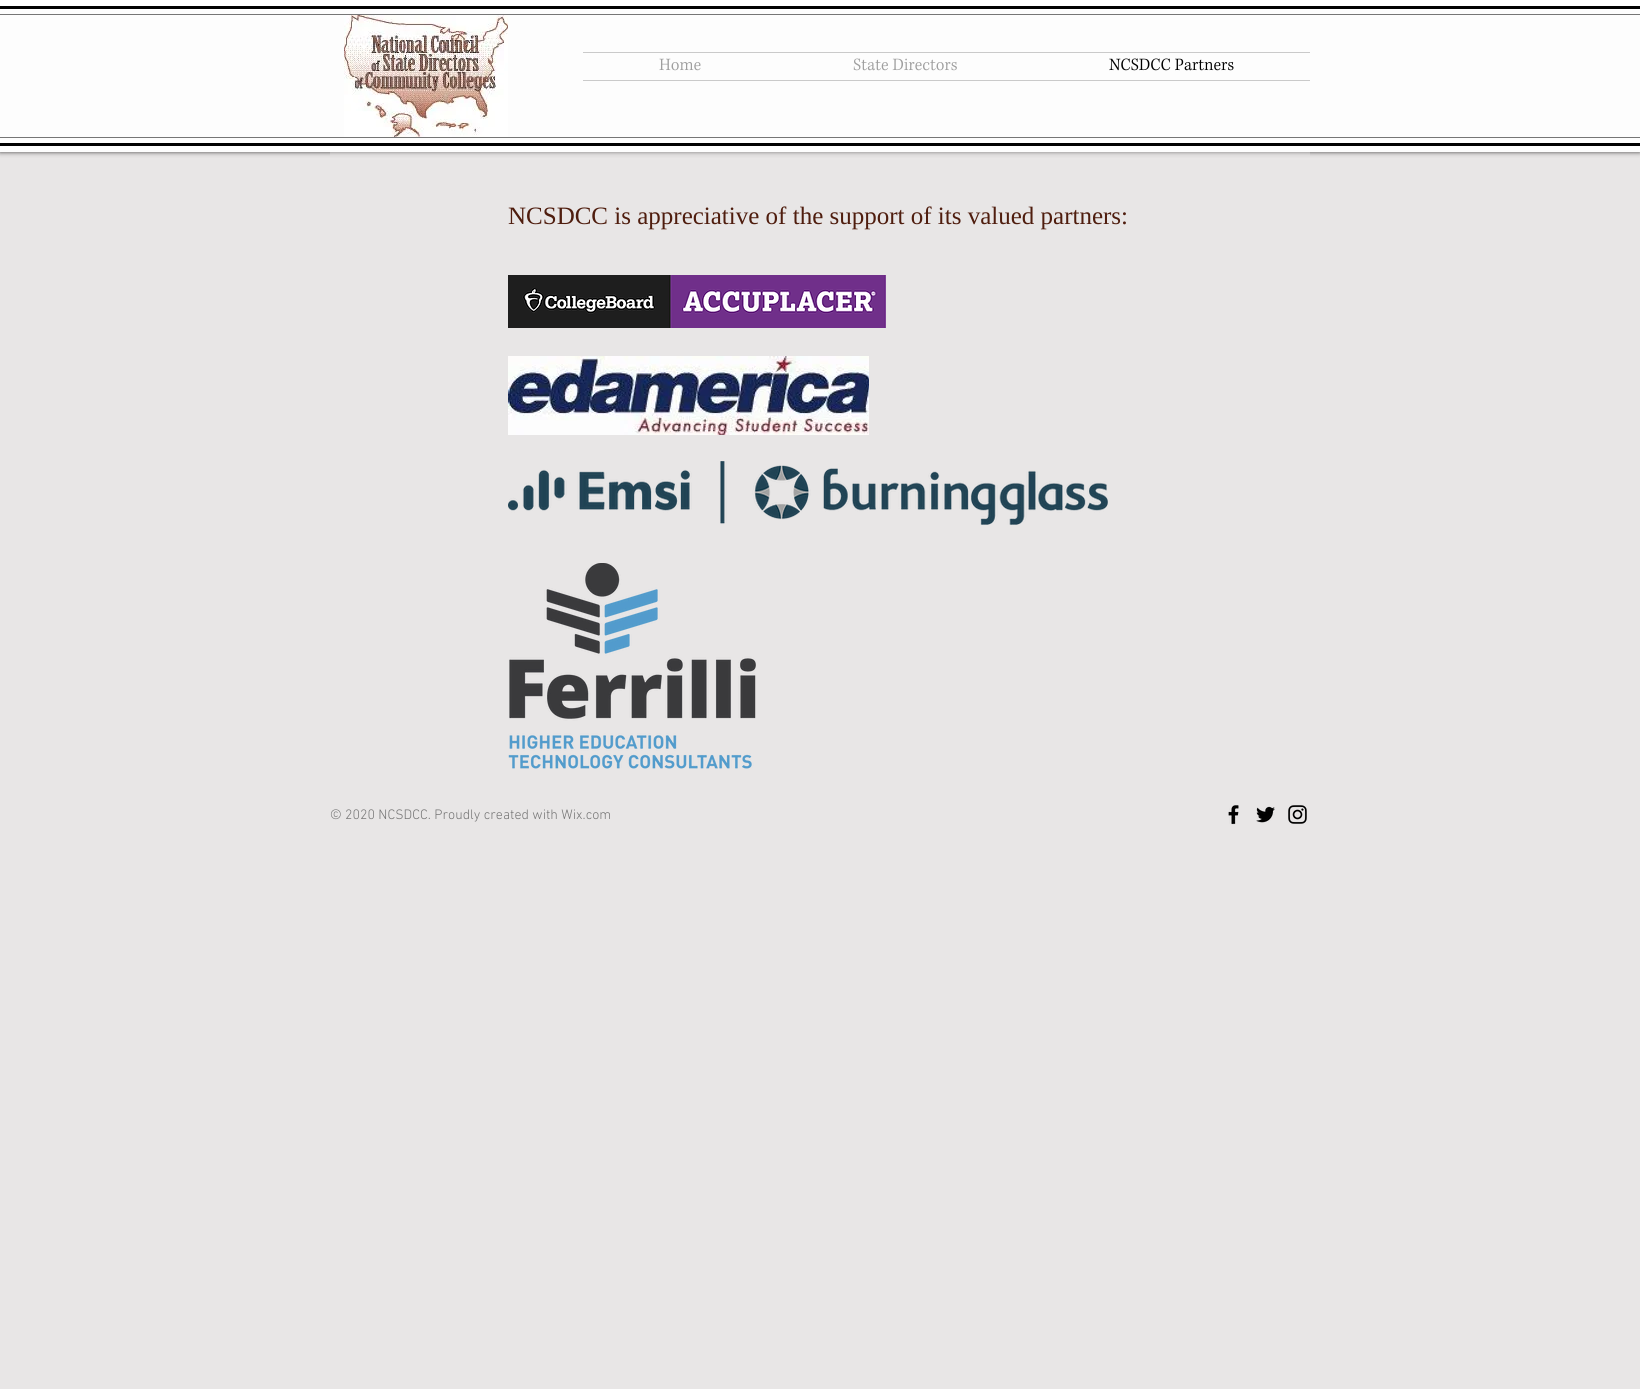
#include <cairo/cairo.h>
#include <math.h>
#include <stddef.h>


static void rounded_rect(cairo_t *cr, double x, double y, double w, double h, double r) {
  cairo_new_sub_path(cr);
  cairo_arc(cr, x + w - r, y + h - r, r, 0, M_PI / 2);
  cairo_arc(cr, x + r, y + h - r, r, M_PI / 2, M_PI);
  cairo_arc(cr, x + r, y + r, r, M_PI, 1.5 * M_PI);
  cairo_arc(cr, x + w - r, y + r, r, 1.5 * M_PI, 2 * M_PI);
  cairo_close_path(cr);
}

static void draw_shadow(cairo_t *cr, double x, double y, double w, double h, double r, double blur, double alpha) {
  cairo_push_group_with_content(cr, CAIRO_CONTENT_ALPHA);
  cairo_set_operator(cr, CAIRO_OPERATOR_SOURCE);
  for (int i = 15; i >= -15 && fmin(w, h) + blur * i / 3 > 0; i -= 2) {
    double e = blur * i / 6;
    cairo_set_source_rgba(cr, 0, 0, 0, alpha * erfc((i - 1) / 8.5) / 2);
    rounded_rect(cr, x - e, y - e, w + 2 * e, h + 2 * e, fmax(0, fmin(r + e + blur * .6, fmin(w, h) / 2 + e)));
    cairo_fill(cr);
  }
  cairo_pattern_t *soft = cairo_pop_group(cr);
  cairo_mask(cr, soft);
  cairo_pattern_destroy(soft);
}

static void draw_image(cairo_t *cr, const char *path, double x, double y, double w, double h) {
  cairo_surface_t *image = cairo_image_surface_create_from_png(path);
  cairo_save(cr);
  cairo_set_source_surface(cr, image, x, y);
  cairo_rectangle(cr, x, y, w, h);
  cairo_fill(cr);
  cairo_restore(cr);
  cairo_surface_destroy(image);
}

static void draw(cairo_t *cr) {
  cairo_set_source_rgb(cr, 232 / 255.0, 230 / 255.0, 230 / 255.0);
  cairo_paint(cr);
  cairo_set_source_rgb(cr, 0, 0, 0);
  draw_shadow(cr, 0, 0, 1640, 152, 0, 2.5, 0.7);
  cairo_set_source_rgb(cr, 253 / 255.0, 253 / 255.0, 253 / 255.0);
  cairo_rectangle(cr, 0, 0, 1640, 152);
  cairo_fill(cr);
  cairo_set_source_rgb(cr, 0, 0, 0);
  cairo_rectangle(cr, 0, 6, 1640, 3);
  cairo_fill(cr);
  cairo_rectangle(cr, 0, 143, 1640, 3);
  cairo_fill(cr);
  cairo_set_source_rgb(cr, 118 / 255.0, 118 / 255.0, 118 / 255.0);
  cairo_rectangle(cr, 0, 14, 1640, 1);
  cairo_fill(cr);
  cairo_rectangle(cr, 0, 137, 1640, 1);
  cairo_fill(cr);
  draw_image(cr, "images/1.png", 344, 15, 164, 122);
  cairo_set_source_rgb(cr, 202 / 255.0, 202 / 255.0, 202 / 255.0);
  cairo_rectangle(cr, 583, 52, 727, 1);
  cairo_fill(cr);
  cairo_rectangle(cr, 583, 80, 727, 1);
  cairo_fill(cr);
  draw_image(cr, "images/2.png", 659, 58, 42, 13);
  draw_image(cr, "images/3.png", 853, 58, 104, 13);
  draw_image(cr, "images/4.png", 1109, 58, 125, 13);
  cairo_set_source_rgba(cr, 232 / 255.0, 230 / 255.0, 230 / 255.0, 0.32);
  cairo_rectangle(cr, 330, 152, 980, 4);
  cairo_fill(cr);
  draw_image(cr, "images/5.png", 508, 275, 378, 53);
  draw_image(cr, "images/6.png", 508, 356, 361, 79);
  draw_image(cr, "images/7.png", 508, 461, 600, 64);
  draw_image(cr, "images/8.png", 508, 563, 248, 206);
  draw_image(cr, "images/9.png", 1228, 805, 11, 20);
  draw_image(cr, "images/10.png", 1256, 806, 19, 17);
  draw_image(cr, "images/11.png", 1288, 805, 19, 19);
  cairo_select_font_face(cr, "Liberation Serif", CAIRO_FONT_SLANT_NORMAL, CAIRO_FONT_WEIGHT_NORMAL);
  cairo_set_font_size(cr, 25);
  cairo_set_source_rgb(cr, 79 / 255.0, 29 / 255.0, 14 / 255.0);
  cairo_move_to(cr, 508, 224);
  cairo_show_text(cr, "NCSDCC is appreciative of the support of its valued partners:");
  cairo_select_font_face(cr, "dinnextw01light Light", CAIRO_FONT_SLANT_NORMAL, CAIRO_FONT_WEIGHT_NORMAL);
  cairo_set_font_size(cr, 14);
  cairo_set_source_rgb(cr, 118 / 255.0, 118 / 255.0, 118 / 255.0);
  cairo_move_to(cr, 330, 819);
  cairo_show_text(cr, "© 2020 NCSDCC. Proudly created with Wix.com");
}

int main(void) {
  cairo_surface_t *surface = cairo_image_surface_create(CAIRO_FORMAT_RGB24, 1640, 1389);
  cairo_t *cr = cairo_create(surface);
  cairo_font_options_t *options = cairo_font_options_create();
  cairo_font_options_set_hint_metrics(options, CAIRO_HINT_METRICS_OFF);
  cairo_font_options_set_hint_style(options, CAIRO_HINT_STYLE_NONE);
  cairo_set_font_options(cr, options);
  cairo_set_miter_limit(cr, 4);
  draw(cr);
  cairo_surface_write_to_png(surface, "out.png");
  cairo_font_options_destroy(options);
  cairo_destroy(cr);
  cairo_surface_destroy(surface);
  return 0;
}
